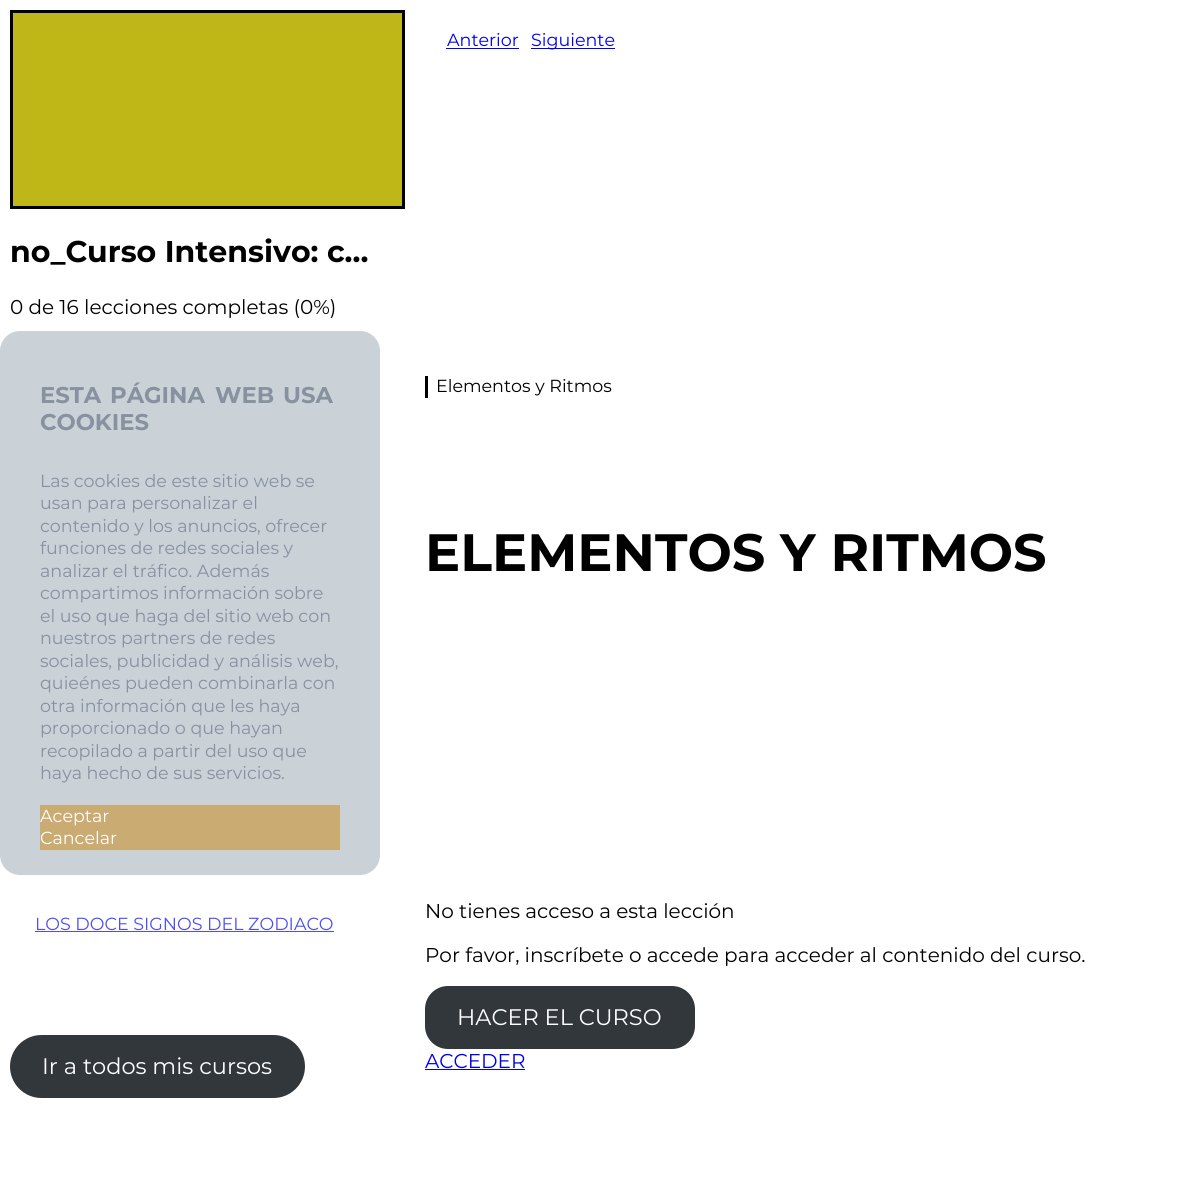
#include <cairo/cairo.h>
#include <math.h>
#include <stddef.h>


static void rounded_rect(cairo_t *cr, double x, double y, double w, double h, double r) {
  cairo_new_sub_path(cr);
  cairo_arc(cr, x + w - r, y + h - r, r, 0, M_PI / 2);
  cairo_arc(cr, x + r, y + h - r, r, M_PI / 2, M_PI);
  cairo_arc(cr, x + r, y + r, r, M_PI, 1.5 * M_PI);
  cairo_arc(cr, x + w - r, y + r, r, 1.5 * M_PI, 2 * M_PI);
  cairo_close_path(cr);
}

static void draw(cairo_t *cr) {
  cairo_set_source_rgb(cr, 1, 1, 1);
  cairo_paint(cr);
  cairo_set_source_rgb(cr, 0, 0, 238 / 255.0);
  cairo_rectangle(cr, 446, 48, 73, 1);
  cairo_fill(cr);
  cairo_rectangle(cr, 531, 48, 84, 1);
  cairo_fill(cr);
  cairo_set_source_rgb(cr, 191 / 255.0, 182 / 255.0, 24 / 255.0);
  cairo_rectangle(cr, 11.5, 11.5, 392, 196);
  cairo_fill_preserve(cr);
  cairo_set_source_rgb(cr, 0, 0, 0);
  cairo_set_line_width(cr, 3);
  cairo_stroke(cr);
  cairo_set_source_rgb(cr, 77 / 255.0, 77 / 255.0, 243 / 255.0);
  cairo_rectangle(cr, 35, 931, 299, 1);
  cairo_fill(cr);
  cairo_set_source_rgb(cr, 50 / 255.0, 55 / 255.0, 60 / 255.0);
  rounded_rect(cr, 10, 1035, 295, 63, 31.5);
  cairo_fill(cr);
  cairo_set_source_rgb(cr, 0, 0, 0);
  cairo_rectangle(cr, 425, 376, 3, 22);
  cairo_fill(cr);
  cairo_set_source_rgb(cr, 50 / 255.0, 55 / 255.0, 60 / 255.0);
  rounded_rect(cr, 425, 986, 270, 63, 23);
  cairo_fill(cr);
  cairo_set_source_rgb(cr, 0, 0, 238 / 255.0);
  cairo_rectangle(cr, 425, 1069, 100, 1);
  cairo_fill(cr);
  cairo_set_source_rgb(cr, 202 / 255.0, 209 / 255.0, 215 / 255.0);
  rounded_rect(cr, 0, 331, 380, 544, 20);
  cairo_fill(cr);
  cairo_set_source_rgb(cr, 202 / 255.0, 171 / 255.0, 114 / 255.0);
  cairo_rectangle(cr, 40, 805, 300, 45);
  cairo_fill(cr);
  cairo_select_font_face(cr, "Montserrat", CAIRO_FONT_SLANT_NORMAL, CAIRO_FONT_WEIGHT_NORMAL);
  cairo_set_font_size(cr, 17.5);
  cairo_set_source_rgb(cr, 0, 0, 238 / 255.0);
  cairo_move_to(cr, 447, 46);
  cairo_show_text(cr, "Anterior");
  cairo_move_to(cr, 531, 46);
  cairo_show_text(cr, "Siguiente");
  cairo_select_font_face(cr, "Montserrat", CAIRO_FONT_SLANT_NORMAL, CAIRO_FONT_WEIGHT_BOLD);
  cairo_set_font_size(cr, 30);
  cairo_set_source_rgb(cr, 0, 0, 0);
  cairo_move_to(cr, 10, 262);
  cairo_show_text(cr, "no_Curso Intensivo: c…");
  cairo_select_font_face(cr, "Montserrat", CAIRO_FONT_SLANT_NORMAL, CAIRO_FONT_WEIGHT_NORMAL);
  cairo_set_font_size(cr, 20);
  cairo_move_to(cr, 10, 314);
  cairo_show_text(cr, "0 de 16 lecciones completas (0%)");
  cairo_set_font_size(cr, 17.5);
  cairo_set_source_rgb(cr, 77 / 255.0, 77 / 255.0, 243 / 255.0);
  cairo_move_to(cr, 35, 930);
  cairo_show_text(cr, "LOS DOCE SIGNOS DEL ZODIACO");
  cairo_set_font_size(cr, 22.5);
  cairo_set_source_rgb(cr, 1, 1, 1);
  cairo_move_to(cr, 42, 1074);
  cairo_show_text(cr, "Ir a todos mis cursos");
  cairo_set_font_size(cr, 17.5);
  cairo_set_source_rgb(cr, 0, 0, 0);
  cairo_move_to(cr, 436, 392);
  cairo_show_text(cr, "Elementos y Ritmos");
  cairo_select_font_face(cr, "Montserrat", CAIRO_FONT_SLANT_NORMAL, CAIRO_FONT_WEIGHT_BOLD);
  cairo_set_font_size(cr, 52.5);
  cairo_move_to(cr, 425, 571);
  cairo_show_text(cr, "ELEMENTOS Y RITMOS");
  cairo_select_font_face(cr, "Montserrat", CAIRO_FONT_SLANT_NORMAL, CAIRO_FONT_WEIGHT_NORMAL);
  cairo_set_font_size(cr, 20);
  cairo_move_to(cr, 425, 918);
  cairo_show_text(cr, "No tienes acceso a esta lección");
  cairo_move_to(cr, 425, 962);
  cairo_show_text(cr, "Por favor, inscríbete o accede para acceder al contenido del curso.");
  cairo_set_font_size(cr, 22.5);
  cairo_set_source_rgb(cr, 1, 1, 1);
  cairo_move_to(cr, 457, 1025);
  cairo_show_text(cr, "HACER EL CURSO");
  cairo_set_font_size(cr, 20);
  cairo_set_source_rgb(cr, 0, 0, 238 / 255.0);
  cairo_move_to(cr, 425, 1068);
  cairo_show_text(cr, "ACCEDER");
  cairo_select_font_face(cr, "Montserrat", CAIRO_FONT_SLANT_NORMAL, CAIRO_FONT_WEIGHT_BOLD);
  cairo_set_font_size(cr, 22.75);
  cairo_set_source_rgb(cr, 135 / 255.0, 145 / 255.0, 160 / 255.0);
  cairo_move_to(cr, 40, 403);
  cairo_show_text(cr, "ESTA");
  cairo_move_to(cr, 110, 403);
  cairo_show_text(cr, "PÁGINA");
  cairo_move_to(cr, 215, 403);
  cairo_show_text(cr, "WEB");
  cairo_move_to(cr, 283, 403);
  cairo_show_text(cr, "USA");
  cairo_move_to(cr, 40, 430);
  cairo_show_text(cr, "COOKIES");
  cairo_select_font_face(cr, "Montserrat", CAIRO_FONT_SLANT_NORMAL, CAIRO_FONT_WEIGHT_NORMAL);
  cairo_set_font_size(cr, 17.5);
  cairo_move_to(cr, 40, 487);
  cairo_show_text(cr, "Las cookies de este sitio web se");
  cairo_move_to(cr, 40, 509);
  cairo_show_text(cr, "usan para personalizar el");
  cairo_move_to(cr, 40, 532);
  cairo_show_text(cr, "contenido y los anuncios, ofrecer");
  cairo_move_to(cr, 40, 554);
  cairo_show_text(cr, "funciones de redes sociales y");
  cairo_move_to(cr, 40, 577);
  cairo_show_text(cr, "analizar el tráfico. Además");
  cairo_move_to(cr, 40, 599);
  cairo_show_text(cr, "compartimos información sobre");
  cairo_move_to(cr, 40, 622);
  cairo_show_text(cr, "el uso que haga del sitio web con");
  cairo_move_to(cr, 40, 644);
  cairo_show_text(cr, "nuestros partners de redes");
  cairo_move_to(cr, 40, 667);
  cairo_show_text(cr, "sociales, publicidad y análisis web,");
  cairo_move_to(cr, 40, 689);
  cairo_show_text(cr, "quieénes pueden combinarla con");
  cairo_move_to(cr, 40, 712);
  cairo_show_text(cr, "otra información que les haya");
  cairo_move_to(cr, 40, 734);
  cairo_show_text(cr, "proporcionado o que hayan");
  cairo_move_to(cr, 40, 757);
  cairo_show_text(cr, "recopilado a partir del uso que");
  cairo_move_to(cr, 40, 779);
  cairo_show_text(cr, "haya hecho de sus servicios.");
  cairo_set_source_rgb(cr, 1, 1, 1);
  cairo_move_to(cr, 40, 822);
  cairo_show_text(cr, "Aceptar");
  cairo_move_to(cr, 40, 844);
  cairo_show_text(cr, "Cancelar");
}

int main(void) {
  cairo_surface_t *surface = cairo_image_surface_create(CAIRO_FORMAT_RGB24, 1181, 1204);
  cairo_t *cr = cairo_create(surface);
  cairo_font_options_t *options = cairo_font_options_create();
  cairo_font_options_set_hint_metrics(options, CAIRO_HINT_METRICS_OFF);
  cairo_font_options_set_hint_style(options, CAIRO_HINT_STYLE_NONE);
  cairo_set_font_options(cr, options);
  cairo_set_miter_limit(cr, 4);
  draw(cr);
  cairo_surface_write_to_png(surface, "out.png");
  cairo_font_options_destroy(options);
  cairo_destroy(cr);
  cairo_surface_destroy(surface);
  return 0;
}
